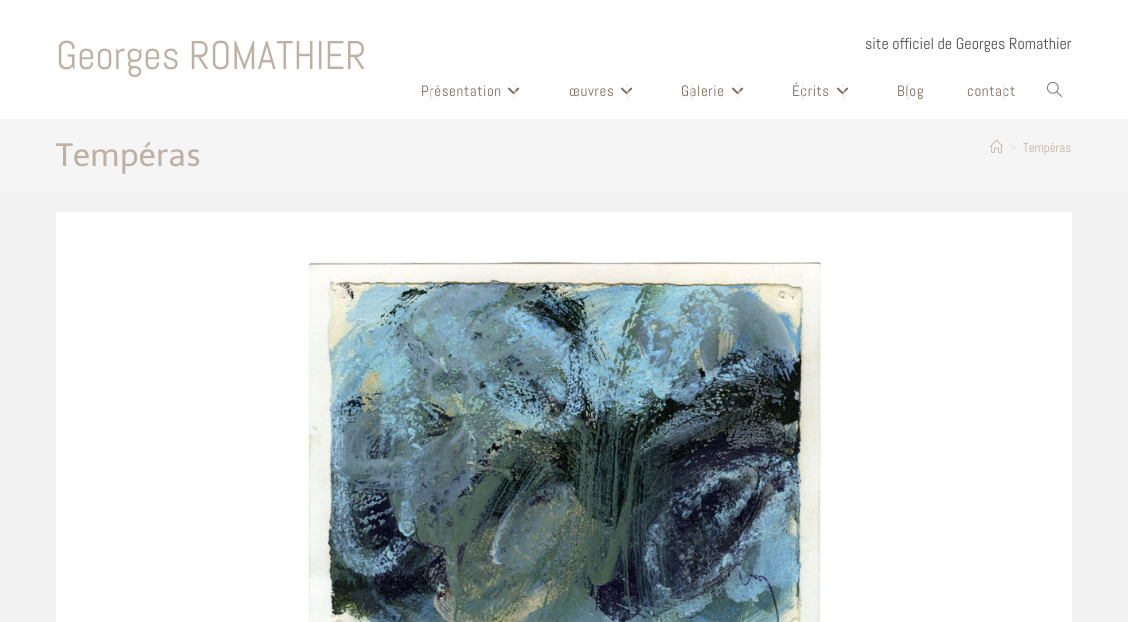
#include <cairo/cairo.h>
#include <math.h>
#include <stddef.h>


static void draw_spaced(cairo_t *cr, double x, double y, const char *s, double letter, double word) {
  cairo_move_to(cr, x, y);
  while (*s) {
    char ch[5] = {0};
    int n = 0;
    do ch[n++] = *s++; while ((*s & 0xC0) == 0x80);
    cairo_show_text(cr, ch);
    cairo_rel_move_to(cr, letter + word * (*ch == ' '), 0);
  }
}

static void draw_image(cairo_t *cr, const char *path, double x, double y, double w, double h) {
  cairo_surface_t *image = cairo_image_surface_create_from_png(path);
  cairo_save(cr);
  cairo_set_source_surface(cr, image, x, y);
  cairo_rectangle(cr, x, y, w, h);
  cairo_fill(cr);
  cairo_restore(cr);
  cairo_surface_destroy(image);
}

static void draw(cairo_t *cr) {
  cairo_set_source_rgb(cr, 241 / 255.0, 241 / 255.0, 241 / 255.0);
  cairo_paint(cr);
  cairo_set_source_rgb(cr, 1, 1, 1);
  cairo_rectangle(cr, 0, 0, 1128, 119);
  cairo_fill(cr);
  draw_image(cr, "images/1.png", 508, 87, 12, 8);
  draw_image(cr, "images/1.png", 621, 87, 12, 8);
  draw_image(cr, "images/1.png", 732, 87, 12, 8);
  draw_image(cr, "images/1.png", 837, 87, 12, 8);
  draw_image(cr, "images/2.png", 1047, 81, 15, 16);
  cairo_set_source_rgb(cr, 245 / 255.0, 245 / 255.0, 245 / 255.0);
  cairo_rectangle(cr, 0, 119, 1128, 73);
  cairo_fill(cr);
  draw_image(cr, "images/3.png", 990, 139, 13, 14);
  cairo_set_source_rgb(cr, 1, 1, 1);
  cairo_rectangle(cr, 56, 212, 1016, 410);
  cairo_fill(cr);
  draw_image(cr, "images/4.png", 306, 262, 516, 360);
  cairo_select_font_face(cr, "Abel", CAIRO_FONT_SLANT_NORMAL, CAIRO_FONT_WEIGHT_NORMAL);
  cairo_set_font_size(cr, 40);
  cairo_set_source_rgb(cr, 190 / 255.0, 177 / 255.0, 163 / 255.0);
  cairo_move_to(cr, 56, 69);
  cairo_show_text(cr, "Georges ROMATHIER");
  cairo_set_font_size(cr, 16);
  cairo_set_source_rgb(cr, 74 / 255.0, 74 / 255.0, 74 / 255.0);
  cairo_move_to(cr, 865, 49);
  cairo_show_text(cr, "site officiel de Georges Romathier");
  cairo_set_font_size(cr, 15);
  cairo_set_source_rgb(cr, 235 / 255.0, 232 / 255.0, 230 / 255.0);
  draw_spaced(cr, 512, 96, "]", 0.6, 0);
  cairo_set_source_rgb(cr, 125 / 255.0, 105 / 255.0, 90 / 255.0);
  draw_spaced(cr, 421, 96, "Présentation", 0.6, 0);
  cairo_set_source_rgb(cr, 230 / 255.0, 226 / 255.0, 224 / 255.0);
  draw_spaced(cr, 429, 96, "[", 0.6, 0);
  cairo_set_source_rgb(cr, 235 / 255.0, 232 / 255.0, 230 / 255.0);
  draw_spaced(cr, 625, 96, "]", 0.6, 0);
  cairo_set_source_rgb(cr, 125 / 255.0, 105 / 255.0, 90 / 255.0);
  draw_spaced(cr, 569, 96, "œuvres", 0.6, 0);
  cairo_set_source_rgb(cr, 235 / 255.0, 232 / 255.0, 230 / 255.0);
  draw_spaced(cr, 736, 96, "]", 0.6, 0);
  cairo_set_source_rgb(cr, 125 / 255.0, 105 / 255.0, 90 / 255.0);
  draw_spaced(cr, 681, 96, "Galerie", 0.6, 0);
  cairo_set_source_rgb(cr, 229 / 255.0, 224 / 255.0, 218 / 255.0);
  draw_spaced(cr, 690, 96, "[", 0.6, 0);
  cairo_set_source_rgb(cr, 125 / 255.0, 105 / 255.0, 90 / 255.0);
  draw_spaced(cr, 792, 96, "Écrits", 0.6, 0);
  cairo_set_source_rgb(cr, 235 / 255.0, 232 / 255.0, 230 / 255.0);
  draw_spaced(cr, 801, 96, "[", 0.6, 0);
  draw_spaced(cr, 841, 96, "]", 0.6, 0);
  cairo_set_source_rgb(cr, 125 / 255.0, 105 / 255.0, 90 / 255.0);
  draw_spaced(cr, 897, 96, "Blog", 0.6, 0);
  cairo_set_source_rgb(cr, 221 / 255.0, 216 / 255.0, 212 / 255.0);
  draw_spaced(cr, 906, 96, "[", 0.6, 0);
  cairo_set_source_rgb(cr, 125 / 255.0, 105 / 255.0, 90 / 255.0);
  draw_spaced(cr, 967, 96, "contact", 0.6, 0);
  cairo_set_source_rgb(cr, 229 / 255.0, 224 / 255.0, 218 / 255.0);
  draw_spaced(cr, 1001, 96, "]", 0.6, 0);
  cairo_select_font_face(cr, "Telex", CAIRO_FONT_SLANT_NORMAL, CAIRO_FONT_WEIGHT_NORMAL);
  cairo_set_font_size(cr, 32);
  cairo_set_source_rgb(cr, 190 / 255.0, 177 / 255.0, 163 / 255.0);
  cairo_move_to(cr, 56, 166);
  cairo_show_text(cr, "Tempéras");
  cairo_select_font_face(cr, "Abel", CAIRO_FONT_SLANT_NORMAL, CAIRO_FONT_WEIGHT_NORMAL);
  cairo_set_font_size(cr, 13);
  cairo_set_source_rgb(cr, 229 / 255.0, 224 / 255.0, 218 / 255.0);
  cairo_move_to(cr, 1009, 152);
  cairo_show_text(cr, ">");
  cairo_set_source_rgb(cr, 190 / 255.0, 177 / 255.0, 163 / 255.0);
  cairo_move_to(cr, 1023, 152);
  cairo_show_text(cr, "Tempéras");
}

int main(void) {
  cairo_surface_t *surface = cairo_image_surface_create(CAIRO_FORMAT_RGB24, 1128, 622);
  cairo_t *cr = cairo_create(surface);
  cairo_font_options_t *options = cairo_font_options_create();
  cairo_font_options_set_hint_metrics(options, CAIRO_HINT_METRICS_OFF);
  cairo_font_options_set_hint_style(options, CAIRO_HINT_STYLE_NONE);
  cairo_set_font_options(cr, options);
  cairo_set_miter_limit(cr, 4);
  draw(cr);
  cairo_surface_write_to_png(surface, "out.png");
  cairo_font_options_destroy(options);
  cairo_destroy(cr);
  cairo_surface_destroy(surface);
  return 0;
}
